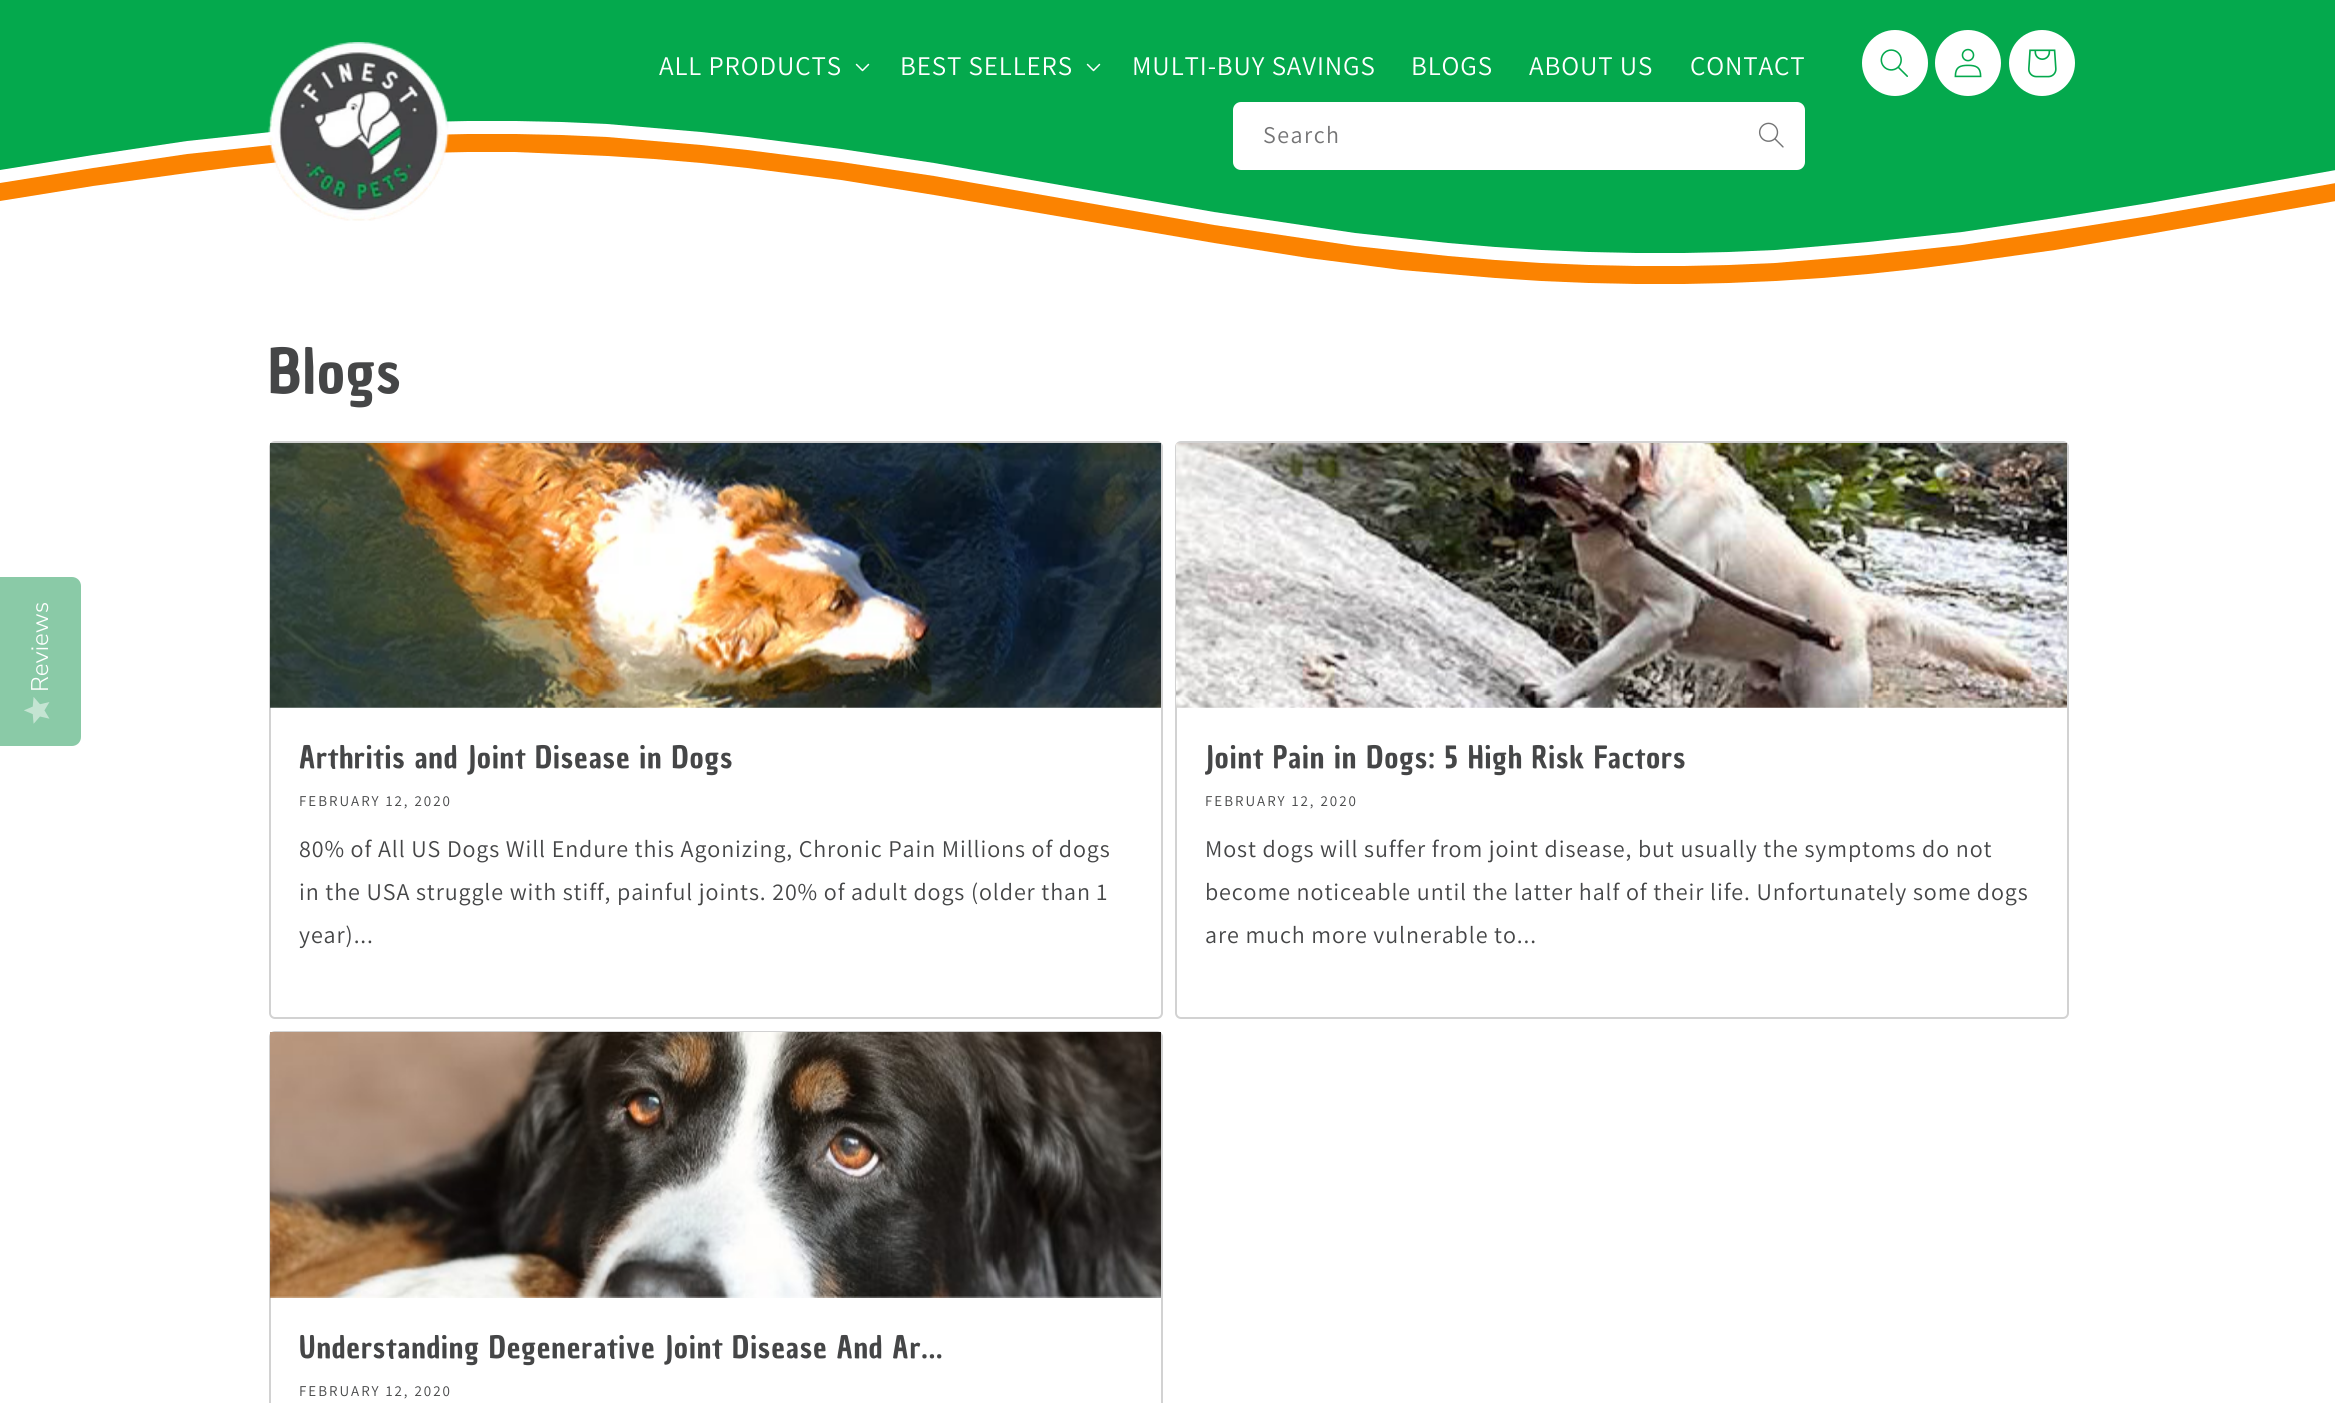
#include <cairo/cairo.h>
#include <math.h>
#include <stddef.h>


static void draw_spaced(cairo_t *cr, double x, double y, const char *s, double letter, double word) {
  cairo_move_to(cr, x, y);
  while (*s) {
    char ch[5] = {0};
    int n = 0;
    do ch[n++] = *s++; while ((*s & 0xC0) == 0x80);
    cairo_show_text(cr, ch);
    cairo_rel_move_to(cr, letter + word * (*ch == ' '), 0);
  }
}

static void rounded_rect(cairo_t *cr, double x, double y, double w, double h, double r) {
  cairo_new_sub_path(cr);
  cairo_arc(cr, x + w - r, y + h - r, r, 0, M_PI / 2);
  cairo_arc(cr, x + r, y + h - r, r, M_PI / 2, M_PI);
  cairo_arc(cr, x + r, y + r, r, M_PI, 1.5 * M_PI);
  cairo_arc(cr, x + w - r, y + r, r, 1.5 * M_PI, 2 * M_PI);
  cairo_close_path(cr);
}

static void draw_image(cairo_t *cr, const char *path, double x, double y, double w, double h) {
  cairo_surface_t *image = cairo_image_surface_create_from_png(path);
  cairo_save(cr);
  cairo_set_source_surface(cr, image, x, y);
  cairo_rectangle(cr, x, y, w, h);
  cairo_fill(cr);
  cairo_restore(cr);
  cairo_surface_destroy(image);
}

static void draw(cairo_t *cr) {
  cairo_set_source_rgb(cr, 1, 1, 1);
  cairo_paint(cr);
  cairo_set_source_rgb(cr, 251 / 255.0, 131 / 255.0, 1 / 255.0);
  cairo_new_path(cr);
  cairo_move_to(cr, 0, 32);
  cairo_line_to(cr, 0, 201);
  cairo_line_to(cr, 93, 186);
  cairo_line_to(cr, 187, 173);
  cairo_line_to(cr, 234, 167);
  cairo_line_to(cr, 280, 162);
  cairo_line_to(cr, 327, 158);
  cairo_line_to(cr, 374, 155);
  cairo_line_to(cr, 420, 153);
  cairo_line_to(cr, 467, 152);
  cairo_line_to(cr, 514, 152);
  cairo_line_to(cr, 561, 154);
  cairo_line_to(cr, 607, 156);
  cairo_line_to(cr, 654, 159);
  cairo_line_to(cr, 701, 163);
  cairo_line_to(cr, 747, 168);
  cairo_line_to(cr, 841, 180);
  cairo_line_to(cr, 934, 195);
  cairo_line_to(cr, 1214, 243);
  cairo_line_to(cr, 1308, 258);
  cairo_line_to(cr, 1355, 264);
  cairo_line_to(cr, 1401, 270);
  cairo_line_to(cr, 1448, 274);
  cairo_line_to(cr, 1495, 278);
  cairo_line_to(cr, 1541, 281);
  cairo_line_to(cr, 1588, 283);
  cairo_line_to(cr, 1635, 284);
  cairo_line_to(cr, 1682, 284);
  cairo_line_to(cr, 1728, 283);
  cairo_line_to(cr, 1775, 281);
  cairo_line_to(cr, 1822, 278);
  cairo_line_to(cr, 1868, 274);
  cairo_line_to(cr, 1915, 269);
  cairo_line_to(cr, 1962, 263);
  cairo_line_to(cr, 2055, 250);
  cairo_line_to(cr, 2149, 234);
  cairo_line_to(cr, 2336, 201);
  cairo_line_to(cr, 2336, 32);
  cairo_close_path(cr);
  cairo_fill(cr);
  cairo_set_source_rgb(cr, 1, 1, 1);
  cairo_new_path(cr);
  cairo_move_to(cr, 0, 14);
  cairo_line_to(cr, 0, 183);
  cairo_line_to(cr, 93, 168);
  cairo_line_to(cr, 187, 154);
  cairo_line_to(cr, 234, 149);
  cairo_line_to(cr, 280, 144);
  cairo_line_to(cr, 327, 140);
  cairo_line_to(cr, 374, 137);
  cairo_line_to(cr, 420, 135);
  cairo_line_to(cr, 467, 134);
  cairo_line_to(cr, 514, 134);
  cairo_line_to(cr, 561, 135);
  cairo_line_to(cr, 607, 137);
  cairo_line_to(cr, 654, 141);
  cairo_line_to(cr, 701, 145);
  cairo_line_to(cr, 747, 150);
  cairo_line_to(cr, 841, 162);
  cairo_line_to(cr, 934, 176);
  cairo_line_to(cr, 1214, 225);
  cairo_line_to(cr, 1308, 239);
  cairo_line_to(cr, 1355, 246);
  cairo_line_to(cr, 1401, 251);
  cairo_line_to(cr, 1448, 256);
  cairo_line_to(cr, 1495, 260);
  cairo_line_to(cr, 1541, 263);
  cairo_line_to(cr, 1588, 265);
  cairo_line_to(cr, 1635, 266);
  cairo_line_to(cr, 1682, 266);
  cairo_line_to(cr, 1728, 265);
  cairo_line_to(cr, 1775, 263);
  cairo_line_to(cr, 1822, 259);
  cairo_line_to(cr, 1868, 255);
  cairo_line_to(cr, 1915, 250);
  cairo_line_to(cr, 1962, 245);
  cairo_line_to(cr, 2055, 231);
  cairo_line_to(cr, 2149, 216);
  cairo_line_to(cr, 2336, 183);
  cairo_line_to(cr, 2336, 14);
  cairo_close_path(cr);
  cairo_fill(cr);
  cairo_set_source_rgb(cr, 4 / 255.0, 169 / 255.0, 77 / 255.0);
  cairo_new_path(cr);
  cairo_move_to(cr, 0, 0);
  cairo_line_to(cr, 0, 170);
  cairo_line_to(cr, 93, 155);
  cairo_line_to(cr, 187, 141);
  cairo_line_to(cr, 234, 136);
  cairo_line_to(cr, 280, 131);
  cairo_line_to(cr, 327, 127);
  cairo_line_to(cr, 374, 124);
  cairo_line_to(cr, 420, 122);
  cairo_line_to(cr, 467, 121);
  cairo_line_to(cr, 514, 121);
  cairo_line_to(cr, 561, 122);
  cairo_line_to(cr, 607, 124);
  cairo_line_to(cr, 654, 128);
  cairo_line_to(cr, 701, 132);
  cairo_line_to(cr, 747, 137);
  cairo_line_to(cr, 841, 149);
  cairo_line_to(cr, 934, 163);
  cairo_line_to(cr, 1214, 212);
  cairo_line_to(cr, 1308, 226);
  cairo_line_to(cr, 1355, 233);
  cairo_line_to(cr, 1401, 238);
  cairo_line_to(cr, 1448, 243);
  cairo_line_to(cr, 1495, 247);
  cairo_line_to(cr, 1541, 250);
  cairo_line_to(cr, 1588, 252);
  cairo_line_to(cr, 1635, 253);
  cairo_line_to(cr, 1682, 253);
  cairo_line_to(cr, 1728, 252);
  cairo_line_to(cr, 1775, 250);
  cairo_line_to(cr, 1822, 246);
  cairo_line_to(cr, 1868, 242);
  cairo_line_to(cr, 1915, 237);
  cairo_line_to(cr, 1962, 232);
  cairo_line_to(cr, 2055, 218);
  cairo_line_to(cr, 2149, 203);
  cairo_line_to(cr, 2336, 170);
  cairo_line_to(cr, 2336, 0);
  cairo_close_path(cr);
  cairo_fill(cr);
  draw_image(cr, "images/1.png", 268, 42, 181, 179);
  draw_image(cr, "images/2.png", 855, 63, 15, 9);
  draw_image(cr, "images/2.png", 1086, 63, 15, 9);
  cairo_set_source_rgb(cr, 1, 1, 1);
  rounded_rect(cr, 1233, 102, 572, 68, 8);
  cairo_fill(cr);
  draw_image(cr, "images/3.png", 1758, 122, 26, 26);
  cairo_arc(cr, 1895, 63, 33, 0, 2 * M_PI);
  cairo_fill(cr);
  draw_image(cr, "images/4.png", 1880, 49, 28, 28);
  cairo_arc(cr, 1968, 63, 33, 0, 2 * M_PI);
  cairo_fill(cr);
  draw_image(cr, "images/5.png", 1954, 48, 28, 30);
  cairo_arc(cr, 2042, 63, 33, 0, 2 * M_PI);
  cairo_fill(cr);
  draw_image(cr, "images/6.png", 2028, 49, 29, 29);
  cairo_set_source_rgb(cr, 138 / 255.0, 202 / 255.0, 167 / 255.0);
  cairo_new_path(cr);
  cairo_move_to(cr, 0, 746);
  cairo_line_to(cr, 0, 577);
  cairo_line_to(cr, 72, 577);
  cairo_curve_to(cr, 77, 577, 81, 581, 81, 586);
  cairo_line_to(cr, 81, 737);
  cairo_curve_to(cr, 81, 742, 77, 746, 72, 746);
  cairo_close_path(cr);
  cairo_fill(cr);
  draw_image(cr, "images/7.png", 24, 697, 26, 27);
  rounded_rect(cr, 270, 442, 892, 576, 5);
  cairo_set_source_rgb(cr, 210 / 255.0, 210 / 255.0, 210 / 255.0);
  cairo_stroke(cr);
  draw_image(cr, "images/8.png", 270, 443, 891, 265);
  rounded_rect(cr, 1176, 442, 892, 576, 5);
  cairo_stroke(cr);
  draw_image(cr, "images/9.png", 1176, 443, 891, 265);
  rounded_rect(cr, 270, 1032, 892, 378, 5);
  cairo_stroke(cr);
  draw_image(cr, "images/10.png", 270, 1032, 891, 266);
  cairo_select_font_face(cr, "Assistant", CAIRO_FONT_SLANT_NORMAL, CAIRO_FONT_WEIGHT_NORMAL);
  cairo_set_font_size(cr, 27);
  cairo_set_source_rgb(cr, 1, 1, 1);
  draw_spaced(cr, 659, 75, "ALL PRODUCTS", 0.9, 0);
  draw_spaced(cr, 900, 75, "BEST SELLERS", 0.9, 0);
  draw_spaced(cr, 1132, 75, "MULTI-BUY SAVINGS", 0.9, 0);
  draw_spaced(cr, 1411, 75, "BLOGS", 0.9, 0);
  draw_spaced(cr, 1529, 75, "ABOUT US", 0.9, 0);
  draw_spaced(cr, 1690, 75, "CONTACT", 0.9, 0);
  cairo_set_font_size(cr, 24);
  cairo_set_source_rgb(cr, 116 / 255.0, 116 / 255.0, 117 / 255.0);
  draw_spaced(cr, 1263, 143, "Search", 1.5, 0);
  cairo_select_font_face(cr, "Nunito Sans Light", CAIRO_FONT_SLANT_NORMAL, CAIRO_FONT_WEIGHT_NORMAL);
  cairo_set_source_rgb(cr, 1, 1, 1);
  cairo_save(cr);
  cairo_translate(cr, 48, 692);
  cairo_rotate(cr, -90 * M_PI / 180);
  cairo_move_to(cr, 0, 0);
  cairo_show_text(cr, "Reviews");
  cairo_restore(cr);
  cairo_select_font_face(cr, "Chau Philomene One", CAIRO_FONT_SLANT_NORMAL, CAIRO_FONT_WEIGHT_NORMAL);
  cairo_set_font_size(cr, 60);
  cairo_set_source_rgb(cr, 69 / 255.0, 70 / 255.0, 71 / 255.0);
  draw_spaced(cr, 268, 393, "Blogs", 0.9, 0);
  cairo_set_font_size(cr, 30);
  draw_spaced(cr, 299, 768, "Arthritis and Joint Disease in Dogs", 0.9, 0);
  cairo_select_font_face(cr, "Assistant", CAIRO_FONT_SLANT_NORMAL, CAIRO_FONT_WEIGHT_NORMAL);
  cairo_set_font_size(cr, 15);
  draw_spaced(cr, 299, 806, "FEBRUARY 12, 2020", 2, 0);
  cairo_set_font_size(cr, 24);
  draw_spaced(cr, 299, 857, "80% of All US Dogs Will Endure this Agonizing, Chronic Pain Millions of dogs", 0.9, 0);
  draw_spaced(cr, 299, 900, "in the USA struggle with stiff, painful joints. 20% of adult dogs (older than 1", 0.9, 0);
  draw_spaced(cr, 299, 943, "year)...", 0.9, 0);
  cairo_select_font_face(cr, "Chau Philomene One", CAIRO_FONT_SLANT_NORMAL, CAIRO_FONT_WEIGHT_NORMAL);
  cairo_set_font_size(cr, 30);
  draw_spaced(cr, 1205, 768, "Joint Pain in Dogs: 5 High Risk Factors", 0.9, 0);
  cairo_select_font_face(cr, "Assistant", CAIRO_FONT_SLANT_NORMAL, CAIRO_FONT_WEIGHT_NORMAL);
  cairo_set_font_size(cr, 15);
  draw_spaced(cr, 1205, 806, "FEBRUARY 12, 2020", 2, 0);
  cairo_set_font_size(cr, 24);
  draw_spaced(cr, 1205, 857, "Most dogs will suffer from joint disease, but usually the symptoms do not", 0.9, 0);
  draw_spaced(cr, 1205, 900, "become noticeable until the latter half of their life. Unfortunately some dogs", 0.9, 0);
  draw_spaced(cr, 1205, 943, "are much more vulnerable to...", 0.9, 0);
  cairo_select_font_face(cr, "Chau Philomene One", CAIRO_FONT_SLANT_NORMAL, CAIRO_FONT_WEIGHT_NORMAL);
  cairo_set_font_size(cr, 30);
  draw_spaced(cr, 299, 1358, "Understanding Degenerative Joint Disease And Ar...", 0.9, 0);
  cairo_select_font_face(cr, "Assistant", CAIRO_FONT_SLANT_NORMAL, CAIRO_FONT_WEIGHT_NORMAL);
  cairo_set_font_size(cr, 15);
  draw_spaced(cr, 299, 1396, "FEBRUARY 12, 2020", 2, 0);
}

int main(void) {
  cairo_surface_t *surface = cairo_image_surface_create(CAIRO_FORMAT_RGB24, 2335, 1403);
  cairo_t *cr = cairo_create(surface);
  cairo_font_options_t *options = cairo_font_options_create();
  cairo_font_options_set_hint_metrics(options, CAIRO_HINT_METRICS_OFF);
  cairo_font_options_set_hint_style(options, CAIRO_HINT_STYLE_NONE);
  cairo_set_font_options(cr, options);
  cairo_set_miter_limit(cr, 4);
  draw(cr);
  cairo_surface_write_to_png(surface, "out.png");
  cairo_font_options_destroy(options);
  cairo_destroy(cr);
  cairo_surface_destroy(surface);
  return 0;
}
